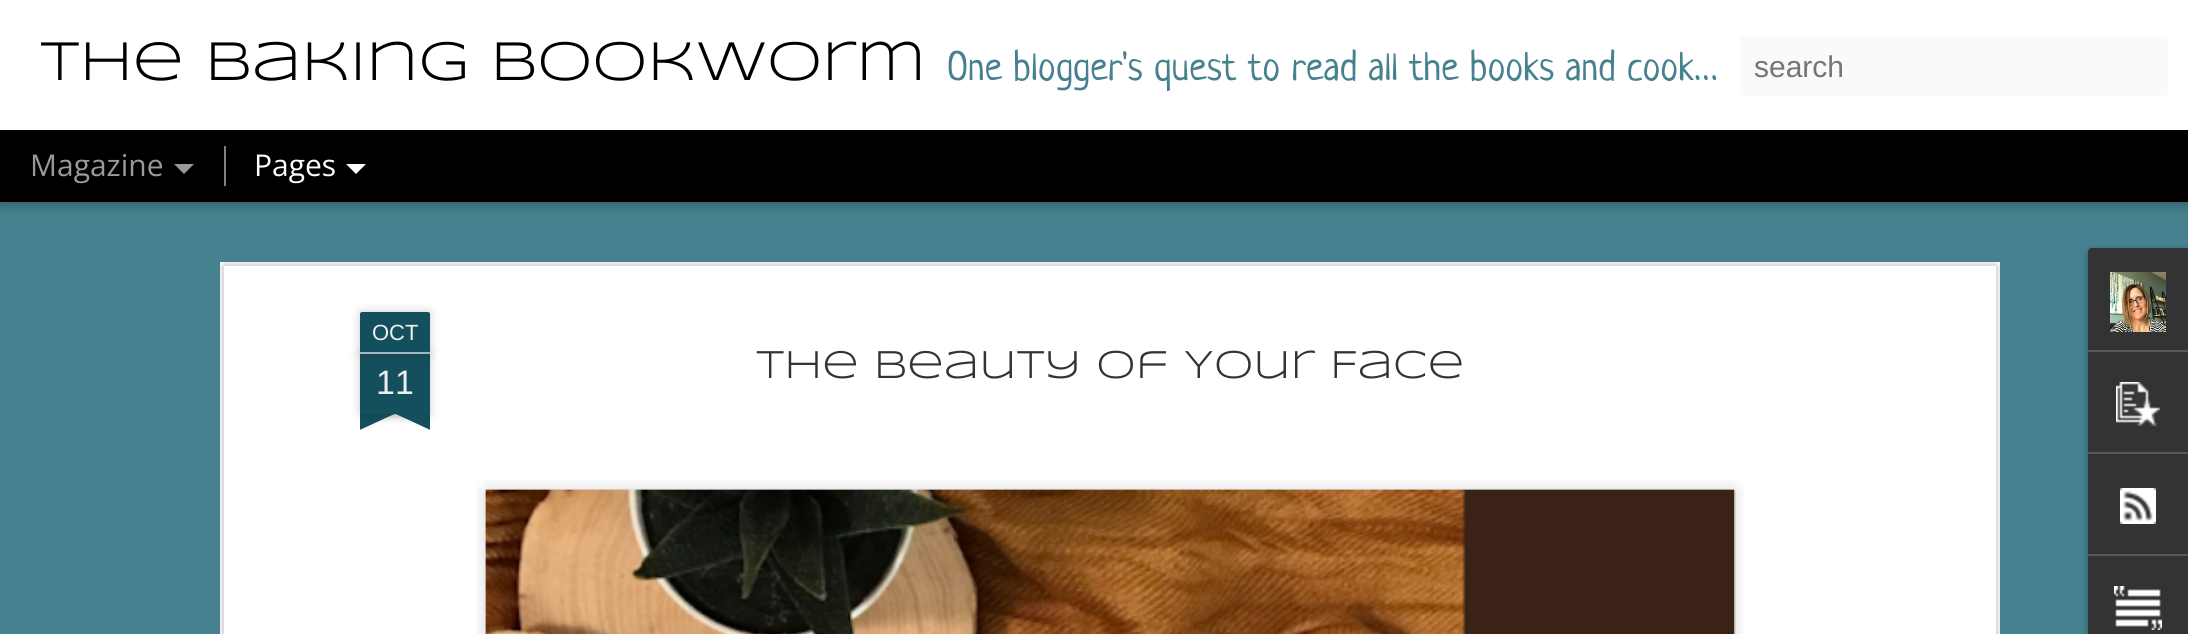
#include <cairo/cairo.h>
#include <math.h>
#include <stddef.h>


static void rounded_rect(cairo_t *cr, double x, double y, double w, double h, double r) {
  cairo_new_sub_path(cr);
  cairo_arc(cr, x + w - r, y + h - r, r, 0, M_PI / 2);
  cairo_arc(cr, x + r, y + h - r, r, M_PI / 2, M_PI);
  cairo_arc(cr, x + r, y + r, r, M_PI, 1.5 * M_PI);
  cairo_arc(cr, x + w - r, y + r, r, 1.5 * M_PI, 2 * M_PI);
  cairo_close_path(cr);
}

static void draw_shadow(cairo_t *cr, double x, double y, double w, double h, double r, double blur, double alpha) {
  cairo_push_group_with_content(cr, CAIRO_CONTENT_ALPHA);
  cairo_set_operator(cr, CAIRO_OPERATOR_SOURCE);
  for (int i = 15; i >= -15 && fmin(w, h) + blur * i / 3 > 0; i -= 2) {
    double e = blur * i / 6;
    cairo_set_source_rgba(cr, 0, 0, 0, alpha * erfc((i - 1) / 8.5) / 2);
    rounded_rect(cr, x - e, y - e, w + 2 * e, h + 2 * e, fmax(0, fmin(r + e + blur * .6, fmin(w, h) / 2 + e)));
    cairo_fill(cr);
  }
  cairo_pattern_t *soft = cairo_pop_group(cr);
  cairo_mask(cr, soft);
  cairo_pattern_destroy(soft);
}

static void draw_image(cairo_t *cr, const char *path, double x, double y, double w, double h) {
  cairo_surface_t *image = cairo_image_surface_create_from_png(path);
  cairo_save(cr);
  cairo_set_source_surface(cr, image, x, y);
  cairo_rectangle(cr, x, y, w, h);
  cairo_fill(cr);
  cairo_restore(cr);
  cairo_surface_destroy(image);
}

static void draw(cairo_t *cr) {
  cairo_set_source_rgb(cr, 0, 0, 0);
  cairo_paint(cr);
  cairo_set_source_rgb(cr, 69 / 255.0, 129 / 255.0, 142 / 255.0);
  cairo_rectangle(cr, 0, 202, 2188, 432);
  cairo_fill(cr);
  cairo_set_source_rgb(cr, 0, 0, 0);
  draw_shadow(cr, 0, 130, 2188, 70, 0, 8, 0.5);
  cairo_set_source_rgb(cr, 1, 1, 1);
  cairo_rectangle(cr, 0, 0, 2188, 130);
  cairo_fill(cr);
  cairo_set_source_rgb(cr, 250 / 255.0, 250 / 255.0, 250 / 255.0);
  rounded_rect(cr, 1740, 36, 428, 60, 6);
  cairo_fill(cr);
  cairo_set_source_rgb(cr, 153 / 255.0, 153 / 255.0, 153 / 255.0);
  cairo_new_path(cr);
  cairo_move_to(cr, 174, 164);
  cairo_line_to(cr, 194, 164);
  cairo_line_to(cr, 184, 174);
  cairo_close_path(cr);
  cairo_fill(cr);
  cairo_set_source_rgb(cr, 128 / 255.0, 128 / 255.0, 128 / 255.0);
  cairo_rectangle(cr, 224, 146, 2, 40);
  cairo_fill(cr);
  cairo_set_source_rgb(cr, 1, 1, 1);
  cairo_new_path(cr);
  cairo_move_to(cr, 346, 164);
  cairo_line_to(cr, 366, 164);
  cairo_line_to(cr, 356, 174);
  cairo_close_path(cr);
  cairo_fill(cr);
  cairo_rectangle(cr, 220, 262, 1780, 372);
  cairo_fill(cr);
  draw_image(cr, "images/1.png", 220, 262, 1780, 372);
  cairo_set_source_rgb(cr, 0, 0, 0);
  draw_shadow(cr, 360, 354, 70, 60, 0, 5, 0.2);
  cairo_set_source_rgb(cr, 19 / 255.0, 79 / 255.0, 92 / 255.0);
  cairo_rectangle(cr, 360, 354, 70, 60);
  cairo_fill(cr);
  cairo_set_source_rgb(cr, 0, 0, 0);
  draw_shadow(cr, 360, 312, 70, 42, 2, 5, 0.2);
  cairo_set_source_rgb(cr, 19 / 255.0, 79 / 255.0, 92 / 255.0);
  cairo_new_path(cr);
  cairo_move_to(cr, 362, 312);
  cairo_line_to(cr, 428, 312);
  cairo_curve_to(cr, 429, 312, 430, 313, 430, 314);
  cairo_line_to(cr, 430, 354);
  cairo_line_to(cr, 360, 354);
  cairo_line_to(cr, 360, 314);
  cairo_curve_to(cr, 360, 313, 361, 312, 362, 312);
  cairo_close_path(cr);
  cairo_fill(cr);
  cairo_set_source_rgb(cr, 161 / 255.0, 185 / 255.0, 190 / 255.0);
  cairo_rectangle(cr, 360, 352, 70, 2);
  cairo_fill(cr);
  cairo_save(cr);
  cairo_rectangle(cr, 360, 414, 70, 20);
  cairo_clip(cr);
  cairo_set_source_rgb(cr, 0, 0, 0);
  draw_shadow(cr, 342, 394, 100, 20, 0, 5, 0.2);
  cairo_restore(cr);
  cairo_save(cr);
  cairo_rectangle(cr, 360, 414, 70, 20);
  cairo_clip(cr);
  cairo_set_source_rgb(cr, 19 / 255.0, 79 / 255.0, 92 / 255.0);
  cairo_new_path(cr);
  cairo_move_to(cr, 342, 416);
  cairo_line_to(cr, 433, 374);
  cairo_line_to(cr, 442, 392);
  cairo_line_to(cr, 351, 434);
  cairo_close_path(cr);
  cairo_fill(cr);
  cairo_restore(cr);
  cairo_save(cr);
  cairo_rectangle(cr, 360, 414, 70, 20);
  cairo_clip(cr);
  cairo_set_source_rgb(cr, 0, 0, 0);
  draw_shadow(cr, 348, 394, 100, 20, 0, 5, 0.2);
  cairo_restore(cr);
  cairo_save(cr);
  cairo_rectangle(cr, 360, 414, 70, 20);
  cairo_clip(cr);
  cairo_set_source_rgb(cr, 19 / 255.0, 79 / 255.0, 92 / 255.0);
  cairo_new_path(cr);
  cairo_move_to(cr, 357, 374);
  cairo_line_to(cr, 448, 416);
  cairo_line_to(cr, 439, 434);
  cairo_line_to(cr, 348, 392);
  cairo_close_path(cr);
  cairo_fill(cr);
  cairo_restore(cr);
  draw_image(cr, "images/2.png", 476, 480, 1268, 154);
  draw_image(cr, "images/3.png", 485, 489, 1251, 145);
  cairo_set_source_rgb(cr, 0, 0, 0);
  draw_shadow(cr, 2088, 250, 100, 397, 4, 3, 0.3);
  cairo_set_source_rgb(cr, 51 / 255.0, 51 / 255.0, 51 / 255.0);
  cairo_new_path(cr);
  cairo_move_to(cr, 2092, 248);
  cairo_line_to(cr, 2188, 248);
  cairo_line_to(cr, 2188, 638);
  cairo_line_to(cr, 2092, 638);
  cairo_curve_to(cr, 2090, 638, 2088, 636, 2088, 634);
  cairo_line_to(cr, 2088, 252);
  cairo_curve_to(cr, 2088, 250, 2090, 248, 2092, 248);
  cairo_close_path(cr);
  cairo_fill(cr);
  cairo_new_path(cr);
  cairo_move_to(cr, 2092, 248);
  cairo_line_to(cr, 2188, 248);
  cairo_line_to(cr, 2188, 350);
  cairo_line_to(cr, 2088, 350);
  cairo_line_to(cr, 2088, 252);
  cairo_curve_to(cr, 2088, 250, 2090, 248, 2092, 248);
  cairo_close_path(cr);
  cairo_fill(cr);
  draw_image(cr, "images/4.png", 2110, 272, 56, 60);
  cairo_set_source_rgb(cr, 88 / 255.0, 88 / 255.0, 88 / 255.0);
  cairo_rectangle(cr, 2088, 350, 100, 2);
  cairo_fill(cr);
  draw_image(cr, "images/5.png", 2116, 382, 44, 44);
  cairo_rectangle(cr, 2088, 452, 100, 2);
  cairo_fill(cr);
  draw_image(cr, "images/6.png", 2120, 488, 36, 36);
  cairo_rectangle(cr, 2088, 554, 100, 2);
  cairo_fill(cr);
  draw_image(cr, "images/7.png", 2114, 586, 48, 44);
  cairo_select_font_face(cr, "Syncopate", CAIRO_FONT_SLANT_NORMAL, CAIRO_FONT_WEIGHT_NORMAL);
  cairo_set_font_size(cr, 56);
  cairo_set_source_rgb(cr, 0, 0, 0);
  cairo_move_to(cr, 40, 80);
  cairo_show_text(cr, "The Baking Bookworm");
  cairo_select_font_face(cr, "Neucha", CAIRO_FONT_SLANT_NORMAL, CAIRO_FONT_WEIGHT_NORMAL);
  cairo_set_font_size(cr, 40);
  cairo_set_source_rgb(cr, 69 / 255.0, 129 / 255.0, 142 / 255.0);
  cairo_move_to(cr, 947, 80);
  cairo_show_text(cr, "One blogger's quest to read all the books and cook…");
  cairo_select_font_face(cr, "Liberation Sans", CAIRO_FONT_SLANT_NORMAL, CAIRO_FONT_WEIGHT_NORMAL);
  cairo_set_font_size(cr, 30);
  cairo_set_source_rgb(cr, 117 / 255.0, 117 / 255.0, 117 / 255.0);
  cairo_move_to(cr, 1754, 77);
  cairo_show_text(cr, "search");
  cairo_select_font_face(cr, "Open Sans", CAIRO_FONT_SLANT_NORMAL, CAIRO_FONT_WEIGHT_NORMAL);
  cairo_set_source_rgb(cr, 153 / 255.0, 153 / 255.0, 153 / 255.0);
  cairo_move_to(cr, 30, 176);
  cairo_show_text(cr, "Magazine");
  cairo_set_source_rgb(cr, 1, 1, 1);
  cairo_move_to(cr, 254, 176);
  cairo_show_text(cr, "Pages");
  cairo_select_font_face(cr, "Liberation Sans", CAIRO_FONT_SLANT_NORMAL, CAIRO_FONT_WEIGHT_NORMAL);
  cairo_set_font_size(cr, 22);
  cairo_set_source_rgb(cr, 238 / 255.0, 238 / 255.0, 238 / 255.0);
  cairo_move_to(cr, 372, 340);
  cairo_show_text(cr, "OCT");
  cairo_set_font_size(cr, 34);
  cairo_move_to(cr, 376, 394);
  cairo_show_text(cr, "11");
  cairo_select_font_face(cr, "Syncopate", CAIRO_FONT_SLANT_NORMAL, CAIRO_FONT_WEIGHT_NORMAL);
  cairo_set_font_size(cr, 40);
  cairo_set_source_rgb(cr, 51 / 255.0, 51 / 255.0, 51 / 255.0);
  cairo_move_to(cr, 756, 378);
  cairo_show_text(cr, "The Beauty Of Your Face");
}

int main(void) {
  cairo_surface_t *surface = cairo_image_surface_create(CAIRO_FORMAT_RGB24, 2188, 634);
  cairo_t *cr = cairo_create(surface);
  cairo_font_options_t *options = cairo_font_options_create();
  cairo_font_options_set_hint_metrics(options, CAIRO_HINT_METRICS_OFF);
  cairo_font_options_set_hint_style(options, CAIRO_HINT_STYLE_NONE);
  cairo_set_font_options(cr, options);
  cairo_set_miter_limit(cr, 4);
  draw(cr);
  cairo_surface_write_to_png(surface, "out.png");
  cairo_font_options_destroy(options);
  cairo_destroy(cr);
  cairo_surface_destroy(surface);
  return 0;
}
